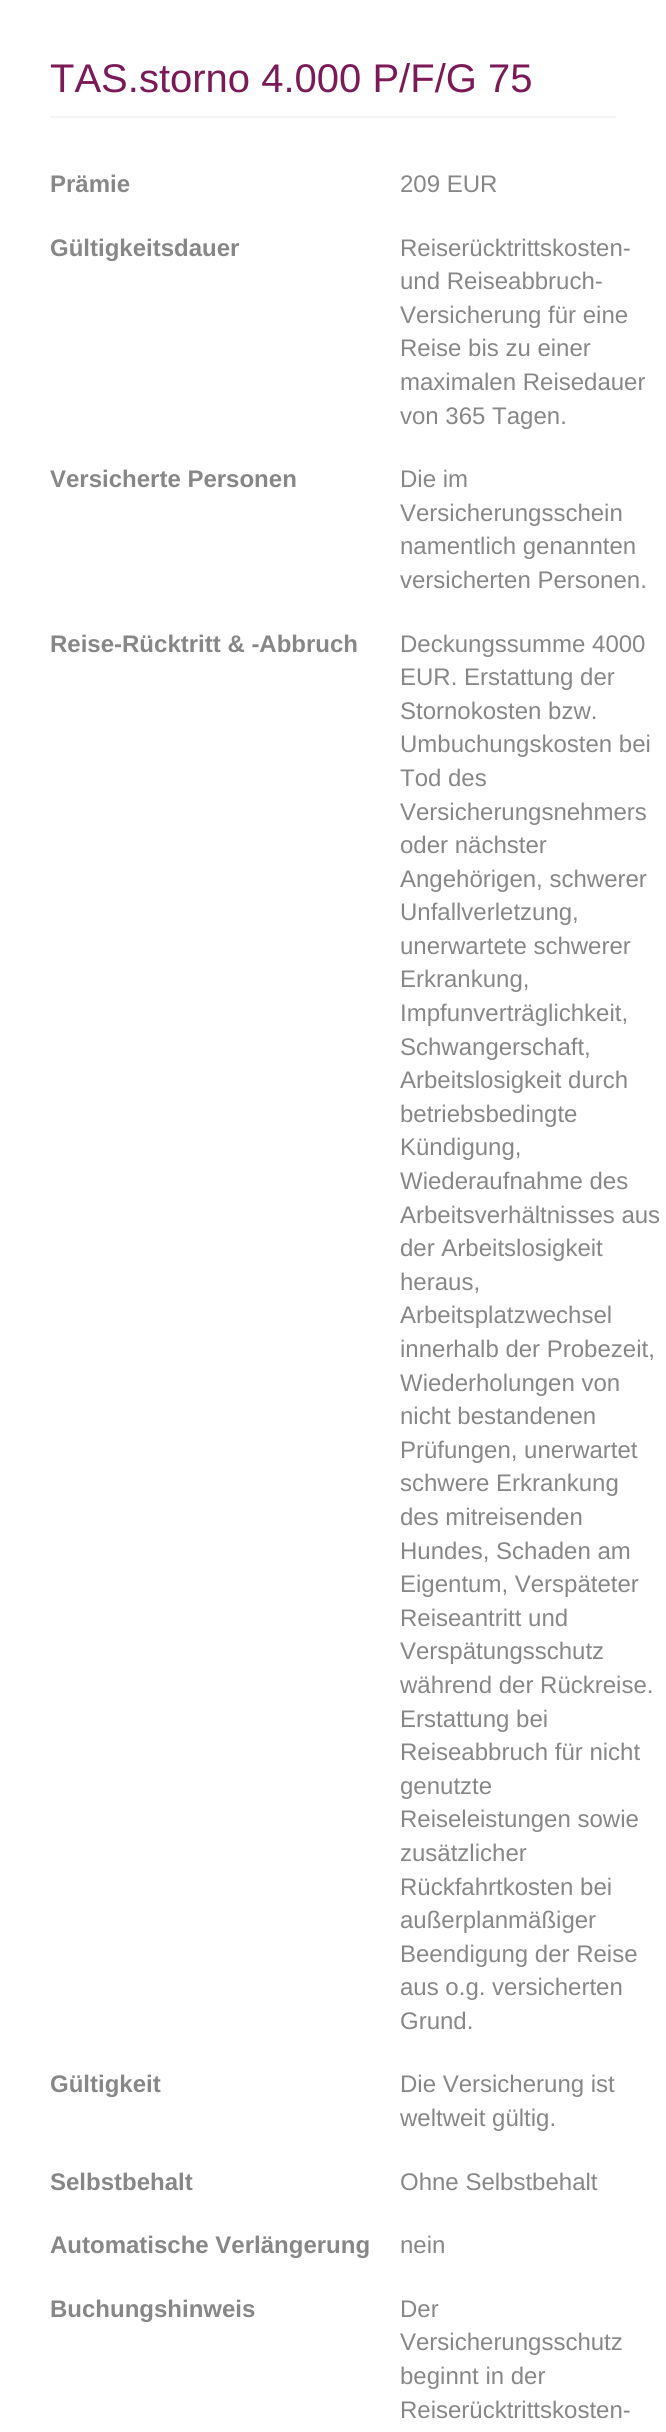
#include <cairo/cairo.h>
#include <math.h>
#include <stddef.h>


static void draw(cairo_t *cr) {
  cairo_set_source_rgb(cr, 1, 1, 1);
  cairo_paint(cr);
  cairo_set_source_rgb(cr, 245 / 255.0, 245 / 255.0, 245 / 255.0);
  cairo_rectangle(cr, 50, 116, 566, 2);
  cairo_fill(cr);
  cairo_select_font_face(cr, "Liberation Sans", CAIRO_FONT_SLANT_NORMAL, CAIRO_FONT_WEIGHT_NORMAL);
  cairo_set_font_size(cr, 40);
  cairo_set_source_rgb(cr, 122 / 255.0, 27 / 255.0, 88 / 255.0);
  cairo_move_to(cr, 50, 92);
  cairo_show_text(cr, "TAS.storno 4.000 P/F/G 75");
  cairo_select_font_face(cr, "Liberation Sans", CAIRO_FONT_SLANT_NORMAL, CAIRO_FONT_WEIGHT_BOLD);
  cairo_set_font_size(cr, 24);
  cairo_set_source_rgb(cr, 135 / 255.0, 135 / 255.0, 135 / 255.0);
  cairo_move_to(cr, 50, 192);
  cairo_show_text(cr, "Prämie");
  cairo_select_font_face(cr, "Liberation Sans", CAIRO_FONT_SLANT_NORMAL, CAIRO_FONT_WEIGHT_NORMAL);
  cairo_move_to(cr, 400, 192);
  cairo_show_text(cr, "209 EUR");
  cairo_select_font_face(cr, "Liberation Sans", CAIRO_FONT_SLANT_NORMAL, CAIRO_FONT_WEIGHT_BOLD);
  cairo_move_to(cr, 50, 256);
  cairo_show_text(cr, "Gültigkeitsdauer");
  cairo_select_font_face(cr, "Liberation Sans", CAIRO_FONT_SLANT_NORMAL, CAIRO_FONT_WEIGHT_NORMAL);
  cairo_move_to(cr, 400, 256);
  cairo_show_text(cr, "Reiserücktrittskosten-");
  cairo_move_to(cr, 400, 289);
  cairo_show_text(cr, "und Reiseabbruch-");
  cairo_move_to(cr, 400, 323);
  cairo_show_text(cr, "Versicherung für eine");
  cairo_move_to(cr, 400, 356);
  cairo_show_text(cr, "Reise bis zu einer");
  cairo_move_to(cr, 400, 390);
  cairo_show_text(cr, "maximalen Reisedauer");
  cairo_move_to(cr, 400, 424);
  cairo_show_text(cr, "von 365 Tagen.");
  cairo_select_font_face(cr, "Liberation Sans", CAIRO_FONT_SLANT_NORMAL, CAIRO_FONT_WEIGHT_BOLD);
  cairo_move_to(cr, 50, 487);
  cairo_show_text(cr, "Versicherte Personen");
  cairo_select_font_face(cr, "Liberation Sans", CAIRO_FONT_SLANT_NORMAL, CAIRO_FONT_WEIGHT_NORMAL);
  cairo_move_to(cr, 400, 487);
  cairo_show_text(cr, "Die im");
  cairo_move_to(cr, 400, 521);
  cairo_show_text(cr, "Versicherungsschein");
  cairo_move_to(cr, 400, 554);
  cairo_show_text(cr, "namentlich genannten");
  cairo_move_to(cr, 400, 588);
  cairo_show_text(cr, "versicherten Personen.");
  cairo_select_font_face(cr, "Liberation Sans", CAIRO_FONT_SLANT_NORMAL, CAIRO_FONT_WEIGHT_BOLD);
  cairo_move_to(cr, 50, 652);
  cairo_show_text(cr, "Reise-Rücktritt & -Abbruch");
  cairo_select_font_face(cr, "Liberation Sans", CAIRO_FONT_SLANT_NORMAL, CAIRO_FONT_WEIGHT_NORMAL);
  cairo_move_to(cr, 400, 652);
  cairo_show_text(cr, "Deckungssumme 4000");
  cairo_move_to(cr, 400, 685);
  cairo_show_text(cr, "EUR. Erstattung der");
  cairo_move_to(cr, 400, 719);
  cairo_show_text(cr, "Stornokosten bzw.");
  cairo_move_to(cr, 400, 752);
  cairo_show_text(cr, "Umbuchungskosten bei");
  cairo_move_to(cr, 400, 786);
  cairo_show_text(cr, "Tod des");
  cairo_move_to(cr, 400, 820);
  cairo_show_text(cr, "Versicherungsnehmers");
  cairo_move_to(cr, 400, 853);
  cairo_show_text(cr, "oder nächster");
  cairo_move_to(cr, 400, 887);
  cairo_show_text(cr, "Angehörigen, schwerer");
  cairo_move_to(cr, 400, 920);
  cairo_show_text(cr, "Unfallverletzung,");
  cairo_move_to(cr, 400, 954);
  cairo_show_text(cr, "unerwartete schwerer");
  cairo_move_to(cr, 400, 987);
  cairo_show_text(cr, "Erkrankung,");
  cairo_move_to(cr, 400, 1021);
  cairo_show_text(cr, "Impfunverträglichkeit,");
  cairo_move_to(cr, 400, 1055);
  cairo_show_text(cr, "Schwangerschaft,");
  cairo_move_to(cr, 400, 1088);
  cairo_show_text(cr, "Arbeitslosigkeit durch");
  cairo_move_to(cr, 400, 1122);
  cairo_show_text(cr, "betriebsbedingte");
  cairo_move_to(cr, 400, 1155);
  cairo_show_text(cr, "Kündigung,");
  cairo_move_to(cr, 400, 1189);
  cairo_show_text(cr, "Wiederaufnahme des");
  cairo_move_to(cr, 400, 1223);
  cairo_show_text(cr, "Arbeitsverhältnisses aus");
  cairo_move_to(cr, 400, 1256);
  cairo_show_text(cr, "der Arbeitslosigkeit");
  cairo_move_to(cr, 400, 1290);
  cairo_show_text(cr, "heraus,");
  cairo_move_to(cr, 400, 1323);
  cairo_show_text(cr, "Arbeitsplatzwechsel");
  cairo_move_to(cr, 400, 1357);
  cairo_show_text(cr, "innerhalb der Probezeit,");
  cairo_move_to(cr, 400, 1391);
  cairo_show_text(cr, "Wiederholungen von");
  cairo_move_to(cr, 400, 1424);
  cairo_show_text(cr, "nicht bestandenen");
  cairo_move_to(cr, 400, 1458);
  cairo_show_text(cr, "Prüfungen, unerwartet");
  cairo_move_to(cr, 400, 1491);
  cairo_show_text(cr, "schwere Erkrankung");
  cairo_move_to(cr, 400, 1525);
  cairo_show_text(cr, "des mitreisenden");
  cairo_move_to(cr, 400, 1559);
  cairo_show_text(cr, "Hundes, Schaden am");
  cairo_move_to(cr, 400, 1592);
  cairo_show_text(cr, "Eigentum, Verspäteter");
  cairo_move_to(cr, 400, 1626);
  cairo_show_text(cr, "Reiseantritt und");
  cairo_move_to(cr, 400, 1659);
  cairo_show_text(cr, "Verspätungsschutz");
  cairo_move_to(cr, 400, 1693);
  cairo_show_text(cr, "während der Rückreise.");
  cairo_move_to(cr, 400, 1727);
  cairo_show_text(cr, "Erstattung bei");
  cairo_move_to(cr, 400, 1760);
  cairo_show_text(cr, "Reiseabbruch für nicht");
  cairo_move_to(cr, 400, 1794);
  cairo_show_text(cr, "genutzte");
  cairo_move_to(cr, 400, 1827);
  cairo_show_text(cr, "Reiseleistungen sowie");
  cairo_move_to(cr, 400, 1861);
  cairo_show_text(cr, "zusätzlicher");
  cairo_move_to(cr, 400, 1895);
  cairo_show_text(cr, "Rückfahrtkosten bei");
  cairo_move_to(cr, 400, 1928);
  cairo_show_text(cr, "außerplanmäßiger");
  cairo_move_to(cr, 400, 1962);
  cairo_show_text(cr, "Beendigung der Reise");
  cairo_move_to(cr, 400, 1995);
  cairo_show_text(cr, "aus o.g. versicherten");
  cairo_move_to(cr, 400, 2029);
  cairo_show_text(cr, "Grund.");
  cairo_select_font_face(cr, "Liberation Sans", CAIRO_FONT_SLANT_NORMAL, CAIRO_FONT_WEIGHT_BOLD);
  cairo_move_to(cr, 50, 2092);
  cairo_show_text(cr, "Gültigkeit");
  cairo_select_font_face(cr, "Liberation Sans", CAIRO_FONT_SLANT_NORMAL, CAIRO_FONT_WEIGHT_NORMAL);
  cairo_move_to(cr, 400, 2092);
  cairo_show_text(cr, "Die Versicherung ist");
  cairo_move_to(cr, 400, 2126);
  cairo_show_text(cr, "weltweit gültig.");
  cairo_select_font_face(cr, "Liberation Sans", CAIRO_FONT_SLANT_NORMAL, CAIRO_FONT_WEIGHT_BOLD);
  cairo_move_to(cr, 50, 2190);
  cairo_show_text(cr, "Selbstbehalt");
  cairo_select_font_face(cr, "Liberation Sans", CAIRO_FONT_SLANT_NORMAL, CAIRO_FONT_WEIGHT_NORMAL);
  cairo_move_to(cr, 400, 2190);
  cairo_show_text(cr, "Ohne Selbstbehalt");
  cairo_select_font_face(cr, "Liberation Sans", CAIRO_FONT_SLANT_NORMAL, CAIRO_FONT_WEIGHT_BOLD);
  cairo_move_to(cr, 50, 2253);
  cairo_show_text(cr, "Automatische Verlängerung");
  cairo_select_font_face(cr, "Liberation Sans", CAIRO_FONT_SLANT_NORMAL, CAIRO_FONT_WEIGHT_NORMAL);
  cairo_move_to(cr, 400, 2253);
  cairo_show_text(cr, "nein");
  cairo_select_font_face(cr, "Liberation Sans", CAIRO_FONT_SLANT_NORMAL, CAIRO_FONT_WEIGHT_BOLD);
  cairo_move_to(cr, 50, 2317);
  cairo_show_text(cr, "Buchungshinweis");
  cairo_select_font_face(cr, "Liberation Sans", CAIRO_FONT_SLANT_NORMAL, CAIRO_FONT_WEIGHT_NORMAL);
  cairo_move_to(cr, 400, 2317);
  cairo_show_text(cr, "Der");
  cairo_move_to(cr, 400, 2350);
  cairo_show_text(cr, "Versicherungsschutz");
  cairo_move_to(cr, 400, 2384);
  cairo_show_text(cr, "beginnt in der");
  cairo_move_to(cr, 400, 2418);
  cairo_show_text(cr, "Reiserücktrittskosten-");
}

int main(void) {
  cairo_surface_t *surface = cairo_image_surface_create(CAIRO_FORMAT_RGB24, 666, 2432);
  cairo_t *cr = cairo_create(surface);
  cairo_font_options_t *options = cairo_font_options_create();
  cairo_font_options_set_hint_metrics(options, CAIRO_HINT_METRICS_OFF);
  cairo_font_options_set_hint_style(options, CAIRO_HINT_STYLE_NONE);
  cairo_set_font_options(cr, options);
  cairo_set_miter_limit(cr, 4);
  draw(cr);
  cairo_surface_write_to_png(surface, "out.png");
  cairo_font_options_destroy(options);
  cairo_destroy(cr);
  cairo_surface_destroy(surface);
  return 0;
}
